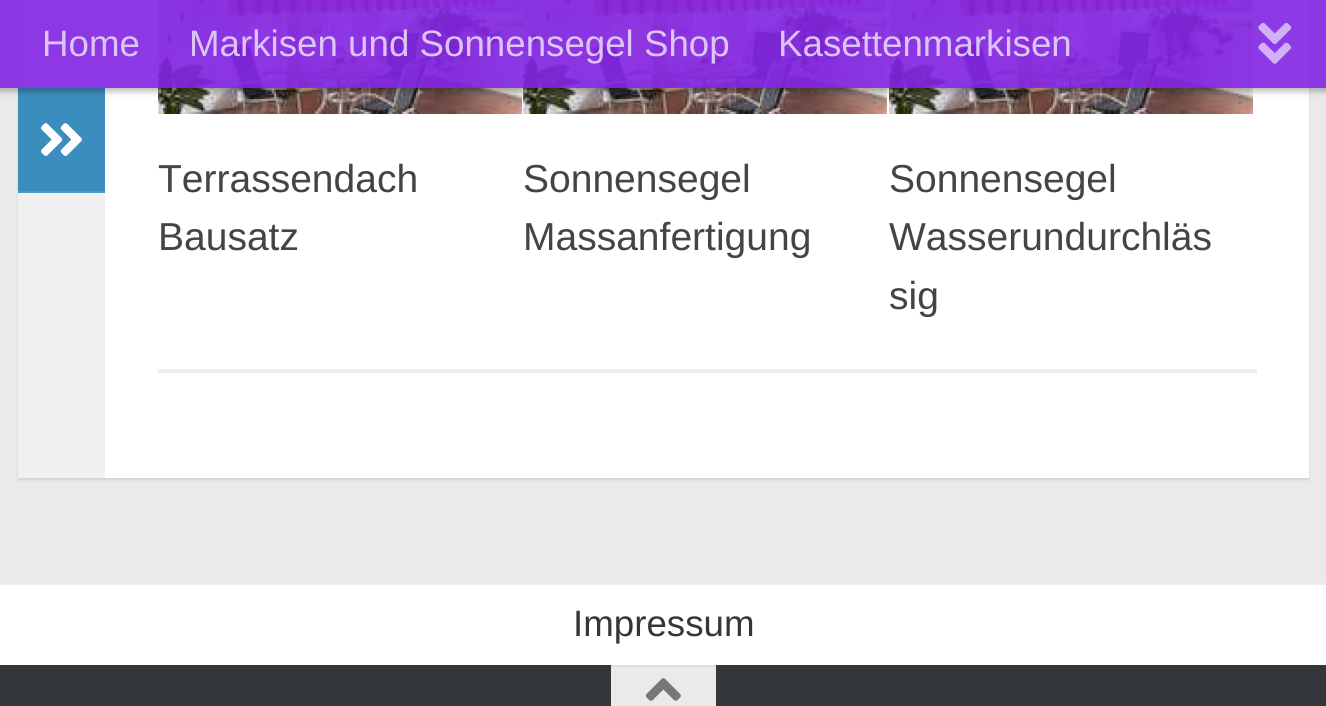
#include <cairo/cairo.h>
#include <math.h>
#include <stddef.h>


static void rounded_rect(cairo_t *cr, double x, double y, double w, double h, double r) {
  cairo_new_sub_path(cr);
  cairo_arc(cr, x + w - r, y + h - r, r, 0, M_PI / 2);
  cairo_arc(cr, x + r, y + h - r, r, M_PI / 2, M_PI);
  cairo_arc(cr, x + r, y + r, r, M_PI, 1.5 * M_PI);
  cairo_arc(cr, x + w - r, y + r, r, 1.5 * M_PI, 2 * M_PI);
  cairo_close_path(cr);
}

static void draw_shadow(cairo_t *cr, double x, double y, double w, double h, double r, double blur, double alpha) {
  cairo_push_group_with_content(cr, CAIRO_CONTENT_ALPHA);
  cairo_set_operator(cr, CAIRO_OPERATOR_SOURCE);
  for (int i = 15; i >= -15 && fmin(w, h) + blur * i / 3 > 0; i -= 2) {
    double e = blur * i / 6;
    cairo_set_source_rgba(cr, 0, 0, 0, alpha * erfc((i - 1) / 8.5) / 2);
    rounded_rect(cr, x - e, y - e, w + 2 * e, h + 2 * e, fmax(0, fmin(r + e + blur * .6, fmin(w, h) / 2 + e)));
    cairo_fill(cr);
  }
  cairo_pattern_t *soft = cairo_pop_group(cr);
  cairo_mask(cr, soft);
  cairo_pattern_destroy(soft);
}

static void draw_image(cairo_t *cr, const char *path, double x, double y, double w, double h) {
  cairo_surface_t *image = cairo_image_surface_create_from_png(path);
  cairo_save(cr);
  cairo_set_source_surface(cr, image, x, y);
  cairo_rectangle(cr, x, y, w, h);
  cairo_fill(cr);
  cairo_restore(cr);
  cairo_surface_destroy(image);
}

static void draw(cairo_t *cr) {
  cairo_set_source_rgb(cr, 234 / 255.0, 234 / 255.0, 234 / 255.0);
  cairo_paint(cr);
  cairo_set_source_rgb(cr, 0, 0, 0);
  draw_shadow(cr, 18, -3, 1291, 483, 0, 1, 0.1);
  cairo_set_source_rgb(cr, 1, 1, 1);
  cairo_rectangle(cr, 105, 0, 1204, 478);
  cairo_fill(cr);
  cairo_set_source_rgb(cr, 240 / 255.0, 240 / 255.0, 240 / 255.0);
  cairo_rectangle(cr, 18, 0, 87, 478);
  cairo_fill(cr);
  cairo_set_source_rgb(cr, 59 / 255.0, 141 / 255.0, 189 / 255.0);
  cairo_rectangle(cr, 18, 88, 87, 103);
  cairo_fill(cr);
  draw_image(cr, "images/3.png", 158, 0, 364, 114);
  draw_image(cr, "images/4.png", 523, 0, 364, 114);
  draw_image(cr, "images/5.png", 889, 0, 364, 114);
  cairo_save(cr);
  cairo_set_fill_rule(cr, CAIRO_FILL_RULE_EVEN_ODD);
  cairo_new_path(cr);
  cairo_move_to(cr, 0, 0);
  cairo_line_to(cr, 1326, 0);
  cairo_line_to(cr, 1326, 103);
  cairo_line_to(cr, 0, 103);
  cairo_close_path(cr);
  cairo_move_to(cr, 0, 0);
  cairo_line_to(cr, 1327, 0);
  cairo_line_to(cr, 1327, 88);
  cairo_line_to(cr, 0, 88);
  cairo_close_path(cr);
  cairo_clip(cr);
  cairo_set_source_rgb(cr, 0, 0, 0);
  draw_shadow(cr, -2, 0, 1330, 91, 0, 3.5, 0.3);
  cairo_restore(cr);
  cairo_set_source_rgba(cr, 130 / 255.0, 36 / 255.0, 227 / 255.0, 0.9);
  cairo_rectangle(cr, 0, 0, 1326, 88);
  cairo_fill(cr);
  draw_image(cr, "images/1.png", 1258, 22, 34, 42);
  cairo_set_source_rgb(cr, 79 / 255.0, 152 / 255.0, 196 / 255.0);
  cairo_rectangle(cr, 18, 191, 87, 2);
  cairo_fill(cr);
  draw_image(cr, "images/2.png", 41, 123, 41, 33);
  cairo_set_source_rgb(cr, 238 / 255.0, 238 / 255.0, 238 / 255.0);
  cairo_rectangle(cr, 158, 369, 1099, 4);
  cairo_fill(cr);
  cairo_set_source_rgb(cr, 1, 1, 1);
  cairo_rectangle(cr, 0, 585, 1326, 80);
  cairo_fill(cr);
  cairo_set_source_rgb(cr, 238 / 255.0, 238 / 255.0, 238 / 255.0);
  cairo_rectangle(cr, 0, 583, 1326, 2);
  cairo_fill(cr);
  cairo_set_source_rgb(cr, 51 / 255.0, 54 / 255.0, 59 / 255.0);
  cairo_rectangle(cr, 0, 665, 1326, 41);
  cairo_fill(cr);
  cairo_set_source_rgb(cr, 234 / 255.0, 234 / 255.0, 234 / 255.0);
  cairo_rectangle(cr, 611, 667, 105, 39);
  cairo_fill(cr);
  cairo_set_source_rgb(cr, 222 / 255.0, 222 / 255.0, 222 / 255.0);
  cairo_rectangle(cr, 611, 665, 105, 2);
  cairo_fill(cr);
  draw_image(cr, "images/6.png", 645, 678, 36, 23);
  cairo_select_font_face(cr, "Liberation Sans", CAIRO_FONT_SLANT_NORMAL, CAIRO_FONT_WEIGHT_NORMAL);
  cairo_set_font_size(cr, 36.7);
  cairo_set_source_rgb(cr, 221 / 255.0, 196 / 255.0, 247 / 255.0);
  cairo_move_to(cr, 42, 56);
  cairo_show_text(cr, "Home");
  cairo_move_to(cr, 189, 56);
  cairo_show_text(cr, "Markisen und Sonnensegel Shop");
  cairo_move_to(cr, 778, 56);
  cairo_show_text(cr, "Kasettenmarkisen");
  cairo_set_font_size(cr, 39);
  cairo_set_source_rgb(cr, 68 / 255.0, 68 / 255.0, 68 / 255.0);
  cairo_move_to(cr, 158, 192);
  cairo_show_text(cr, "Terrassendach");
  cairo_move_to(cr, 158, 250);
  cairo_show_text(cr, "Bausatz");
  cairo_move_to(cr, 523, 192);
  cairo_show_text(cr, "Sonnensegel");
  cairo_move_to(cr, 523, 250);
  cairo_show_text(cr, "Massanfertigung");
  cairo_move_to(cr, 889, 192);
  cairo_show_text(cr, "Sonnensegel");
  cairo_move_to(cr, 889, 250);
  cairo_show_text(cr, "Wasserundurchläs");
  cairo_move_to(cr, 889, 309);
  cairo_show_text(cr, "sig");
  cairo_set_font_size(cr, 36.7);
  cairo_set_source_rgb(cr, 51 / 255.0, 54 / 255.0, 59 / 255.0);
  cairo_move_to(cr, 573, 636);
  cairo_show_text(cr, "Impressum");
}

int main(void) {
  cairo_surface_t *surface = cairo_image_surface_create(CAIRO_FORMAT_RGB24, 1326, 706);
  cairo_t *cr = cairo_create(surface);
  cairo_font_options_t *options = cairo_font_options_create();
  cairo_font_options_set_hint_metrics(options, CAIRO_HINT_METRICS_OFF);
  cairo_font_options_set_hint_style(options, CAIRO_HINT_STYLE_NONE);
  cairo_set_font_options(cr, options);
  cairo_set_miter_limit(cr, 4);
  draw(cr);
  cairo_surface_write_to_png(surface, "out.png");
  cairo_font_options_destroy(options);
  cairo_destroy(cr);
  cairo_surface_destroy(surface);
  return 0;
}
